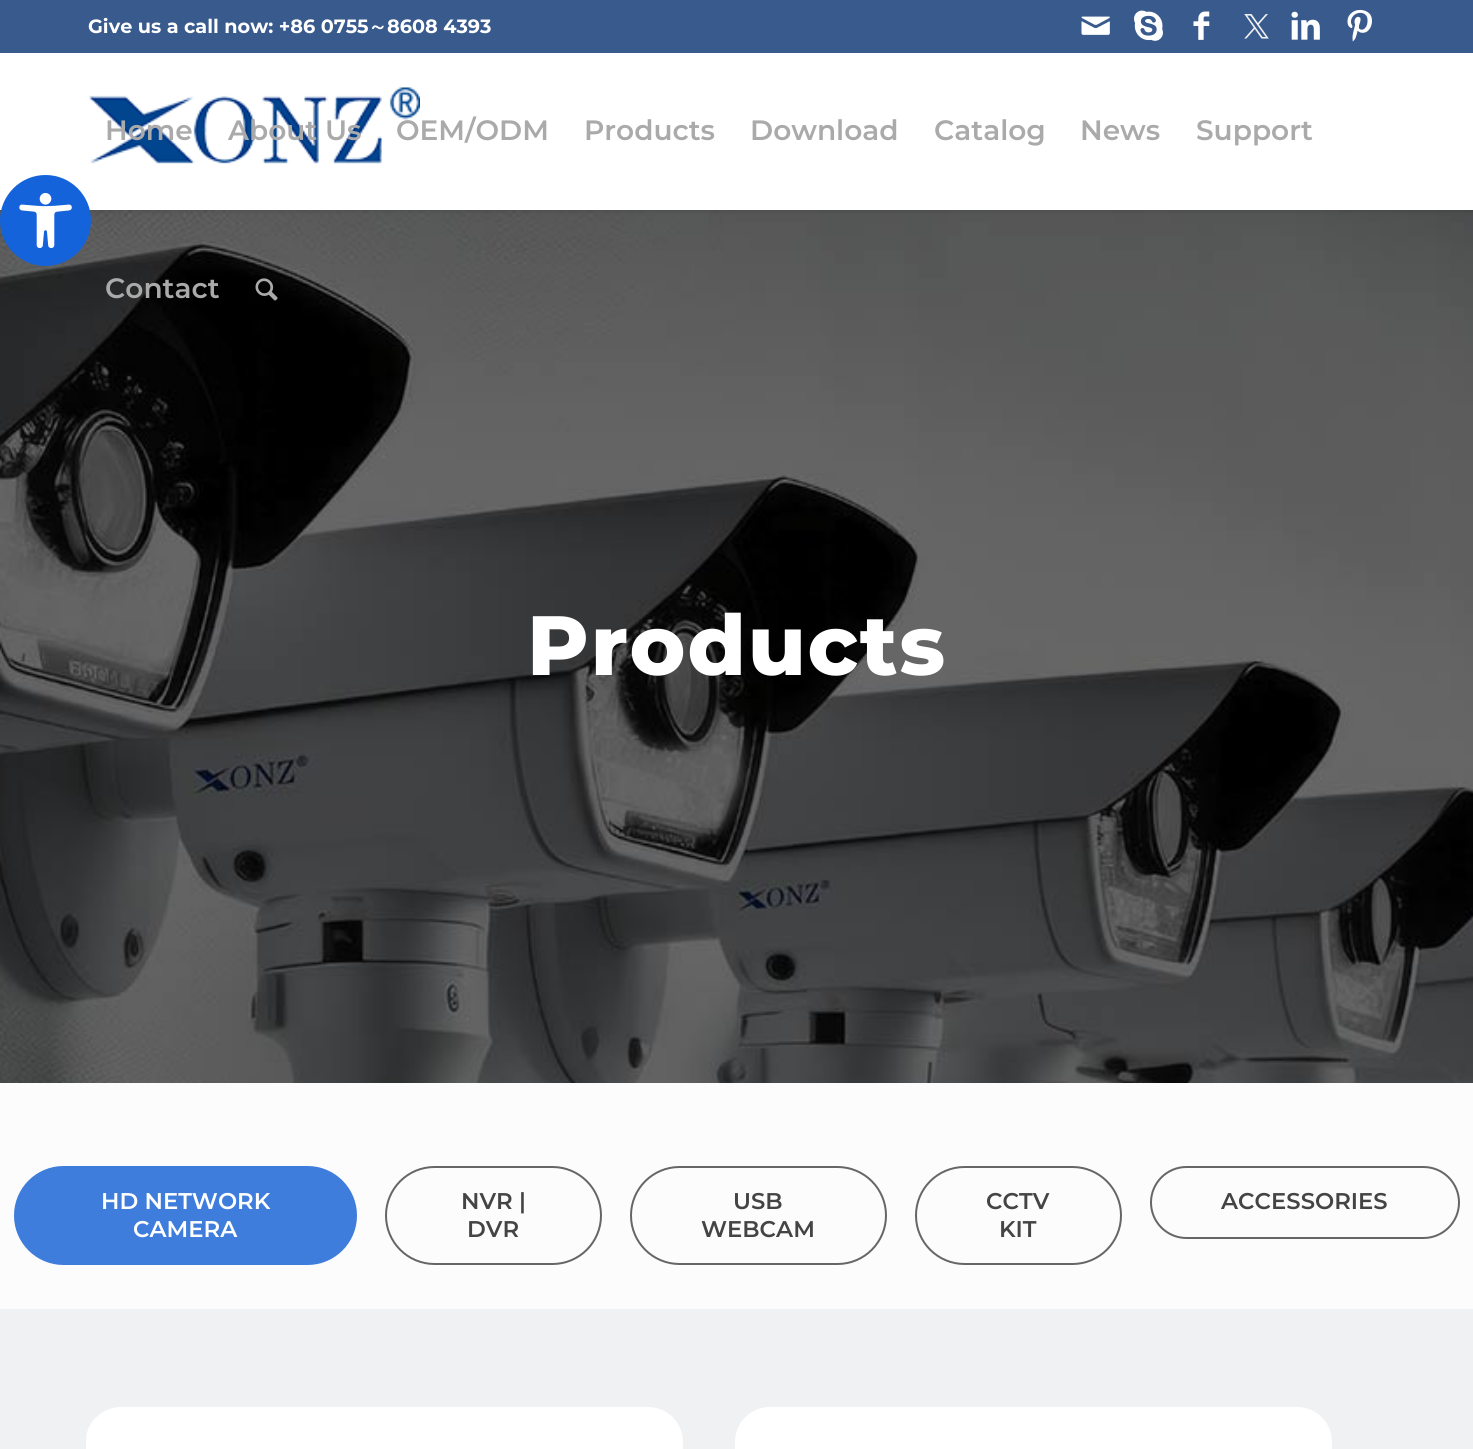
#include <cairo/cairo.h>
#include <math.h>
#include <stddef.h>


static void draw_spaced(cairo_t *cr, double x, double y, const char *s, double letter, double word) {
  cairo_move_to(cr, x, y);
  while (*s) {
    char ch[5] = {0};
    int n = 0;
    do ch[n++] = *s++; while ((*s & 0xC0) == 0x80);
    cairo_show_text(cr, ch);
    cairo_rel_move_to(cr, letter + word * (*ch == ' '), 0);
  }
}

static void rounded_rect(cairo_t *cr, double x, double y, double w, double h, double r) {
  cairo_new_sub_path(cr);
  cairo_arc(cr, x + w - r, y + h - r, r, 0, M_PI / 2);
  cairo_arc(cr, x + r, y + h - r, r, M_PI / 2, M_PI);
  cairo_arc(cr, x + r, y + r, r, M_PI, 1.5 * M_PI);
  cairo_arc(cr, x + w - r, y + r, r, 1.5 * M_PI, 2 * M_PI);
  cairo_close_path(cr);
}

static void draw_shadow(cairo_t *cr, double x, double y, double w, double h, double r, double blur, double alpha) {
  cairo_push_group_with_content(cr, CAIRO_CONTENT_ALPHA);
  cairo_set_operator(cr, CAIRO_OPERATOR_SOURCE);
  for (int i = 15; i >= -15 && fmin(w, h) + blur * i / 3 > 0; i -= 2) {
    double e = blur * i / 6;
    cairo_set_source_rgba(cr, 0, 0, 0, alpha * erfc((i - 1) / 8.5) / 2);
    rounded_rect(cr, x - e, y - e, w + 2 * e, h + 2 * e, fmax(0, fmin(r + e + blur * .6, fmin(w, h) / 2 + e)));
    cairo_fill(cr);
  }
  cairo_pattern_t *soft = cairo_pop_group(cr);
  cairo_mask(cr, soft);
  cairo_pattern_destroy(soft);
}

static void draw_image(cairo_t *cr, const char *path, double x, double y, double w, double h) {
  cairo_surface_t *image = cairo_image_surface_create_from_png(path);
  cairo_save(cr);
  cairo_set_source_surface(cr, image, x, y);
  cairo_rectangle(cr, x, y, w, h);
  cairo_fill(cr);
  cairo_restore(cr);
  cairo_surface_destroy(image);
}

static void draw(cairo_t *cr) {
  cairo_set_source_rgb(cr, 1, 1, 1);
  cairo_paint(cr);
  draw_image(cr, "images/10.png", 0, 210, 1473, 873);
  cairo_set_source_rgb(cr, 0, 0, 0);
  draw_shadow(cr, -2, -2, 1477, 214, 0, 2, 0.1);
  cairo_set_source_rgb(cr, 1, 1, 1);
  cairo_rectangle(cr, 0, 53, 1473, 157);
  cairo_fill(cr);
  cairo_set_source_rgb(cr, 21 / 255.0, 99 / 255.0, 219 / 255.0);
  cairo_arc(cr, 45.5, 220.5, 45.5, 0, 2 * M_PI);
  cairo_fill(cr);
  draw_image(cr, "images/1.png", 19, 193, 53, 56);
  cairo_set_source_rgb(cr, 56 / 255.0, 90 / 255.0, 141 / 255.0);
  cairo_rectangle(cr, 0, 0, 1473, 53);
  cairo_fill(cr);
  draw_image(cr, "images/2.png", 1081, 16, 29, 19);
  draw_image(cr, "images/3.png", 1134, 10, 29, 31);
  draw_image(cr, "images/4.png", 1193, 11, 17, 29);
  draw_image(cr, "images/5.png", 1244, 14, 25, 25);
  draw_image(cr, "images/6.png", 1291, 11, 29, 29);
  draw_image(cr, "images/7.png", 1347, 9, 25, 33);
  draw_image(cr, "images/8.png", 89, 87, 331, 77);
  draw_image(cr, "images/9.png", 255, 278, 23, 23);
  cairo_set_source_rgb(cr, 252 / 255.0, 252 / 255.0, 252 / 255.0);
  cairo_rectangle(cr, 0, 1083, 1473, 226);
  cairo_fill(cr);
  cairo_set_source_rgb(cr, 63 / 255.0, 125 / 255.0, 220 / 255.0);
  rounded_rect(cr, 15, 1167, 341, 97, 48.5);
  cairo_fill_preserve(cr);
  cairo_stroke(cr);
  rounded_rect(cr, 386, 1167, 215, 97, 48.5);
  cairo_set_source_rgb(cr, 102 / 255.0, 102 / 255.0, 102 / 255.0);
  cairo_stroke(cr);
  rounded_rect(cr, 631, 1167, 255, 97, 48.5);
  cairo_stroke(cr);
  rounded_rect(cr, 916, 1167, 205, 97, 48.5);
  cairo_stroke(cr);
  rounded_rect(cr, 1151, 1167, 308, 71, 35.5);
  cairo_stroke(cr);
  cairo_set_source_rgb(cr, 240 / 255.0, 241 / 255.0, 243 / 255.0);
  cairo_rectangle(cr, 0, 1309, 1473, 140);
  cairo_fill(cr);
  cairo_set_source_rgb(cr, 1, 1, 1);
  rounded_rect(cr, 86, 1407, 597, 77, 35);
  cairo_fill(cr);
  draw_image(cr, "images/11.png", 86, 1417, 10, 20);
  rounded_rect(cr, 735, 1407, 597, 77, 35);
  cairo_fill(cr);
  cairo_select_font_face(cr, "Montserrat", CAIRO_FONT_SLANT_NORMAL, CAIRO_FONT_WEIGHT_BOLD);
  cairo_set_font_size(cr, 19.25);
  cairo_move_to(cr, 88, 33);
  cairo_show_text(cr, "Give us a call now: +86 0755");
  cairo_select_font_face(cr, "WenQuanYi Zen Hei", CAIRO_FONT_SLANT_NORMAL, CAIRO_FONT_WEIGHT_BOLD);
  cairo_move_to(cr, 368, 33);
  cairo_show_text(cr, "～");
  cairo_select_font_face(cr, "Montserrat", CAIRO_FONT_SLANT_NORMAL, CAIRO_FONT_WEIGHT_BOLD);
  cairo_move_to(cr, 387, 33);
  cairo_show_text(cr, "8608 4393");
  cairo_select_font_face(cr, "Montserrat SemiBold", CAIRO_FONT_SLANT_NORMAL, CAIRO_FONT_WEIGHT_NORMAL);
  cairo_set_font_size(cr, 28);
  cairo_set_source_rgb(cr, 170 / 255.0, 170 / 255.0, 170 / 255.0);
  cairo_move_to(cr, 105, 140);
  cairo_show_text(cr, "Home");
  cairo_move_to(cr, 228, 140);
  cairo_show_text(cr, "About Us");
  cairo_move_to(cr, 396, 140);
  cairo_show_text(cr, "OEM/ODM");
  cairo_move_to(cr, 584, 140);
  cairo_show_text(cr, "Products");
  cairo_move_to(cr, 750, 140);
  cairo_show_text(cr, "Download");
  cairo_move_to(cr, 934, 140);
  cairo_show_text(cr, "Catalog");
  cairo_move_to(cr, 1080, 140);
  cairo_show_text(cr, "News");
  cairo_move_to(cr, 1196, 140);
  cairo_show_text(cr, "Support");
  cairo_move_to(cr, 105, 298);
  cairo_show_text(cr, "Contact");
  cairo_select_font_face(cr, "Montserrat ExtraBold", CAIRO_FONT_SLANT_NORMAL, CAIRO_FONT_WEIGHT_NORMAL);
  cairo_set_font_size(cr, 84);
  cairo_set_source_rgb(cr, 1, 1, 1);
  draw_spaced(cr, 527, 675, "Products", 1.75, 0);
  cairo_select_font_face(cr, "Montserrat SemiBold", CAIRO_FONT_SLANT_NORMAL, CAIRO_FONT_WEIGHT_NORMAL);
  cairo_set_font_size(cr, 22.75);
  cairo_move_to(cr, 101, 1209);
  cairo_show_text(cr, "HD NETWORK");
  cairo_move_to(cr, 133, 1237);
  cairo_show_text(cr, "CAMERA");
  cairo_set_source_rgb(cr, 68 / 255.0, 68 / 255.0, 68 / 255.0);
  cairo_move_to(cr, 461, 1209);
  cairo_show_text(cr, "NVR |");
  cairo_move_to(cr, 467, 1237);
  cairo_show_text(cr, "DVR");
  cairo_move_to(cr, 733, 1209);
  cairo_show_text(cr, "USB");
  cairo_move_to(cr, 701, 1237);
  cairo_show_text(cr, "WEBCAM");
  cairo_move_to(cr, 986, 1209);
  cairo_show_text(cr, "CCTV");
  cairo_move_to(cr, 999, 1237);
  cairo_show_text(cr, "KIT");
  cairo_move_to(cr, 1221, 1209);
  cairo_show_text(cr, "ACCESSORIES");
}

int main(void) {
  cairo_surface_t *surface = cairo_image_surface_create(CAIRO_FORMAT_RGB24, 1473, 1449);
  cairo_t *cr = cairo_create(surface);
  cairo_font_options_t *options = cairo_font_options_create();
  cairo_font_options_set_hint_metrics(options, CAIRO_HINT_METRICS_OFF);
  cairo_font_options_set_hint_style(options, CAIRO_HINT_STYLE_NONE);
  cairo_set_font_options(cr, options);
  cairo_set_miter_limit(cr, 4);
  draw(cr);
  cairo_surface_write_to_png(surface, "out.png");
  cairo_font_options_destroy(options);
  cairo_destroy(cr);
  cairo_surface_destroy(surface);
  return 0;
}
